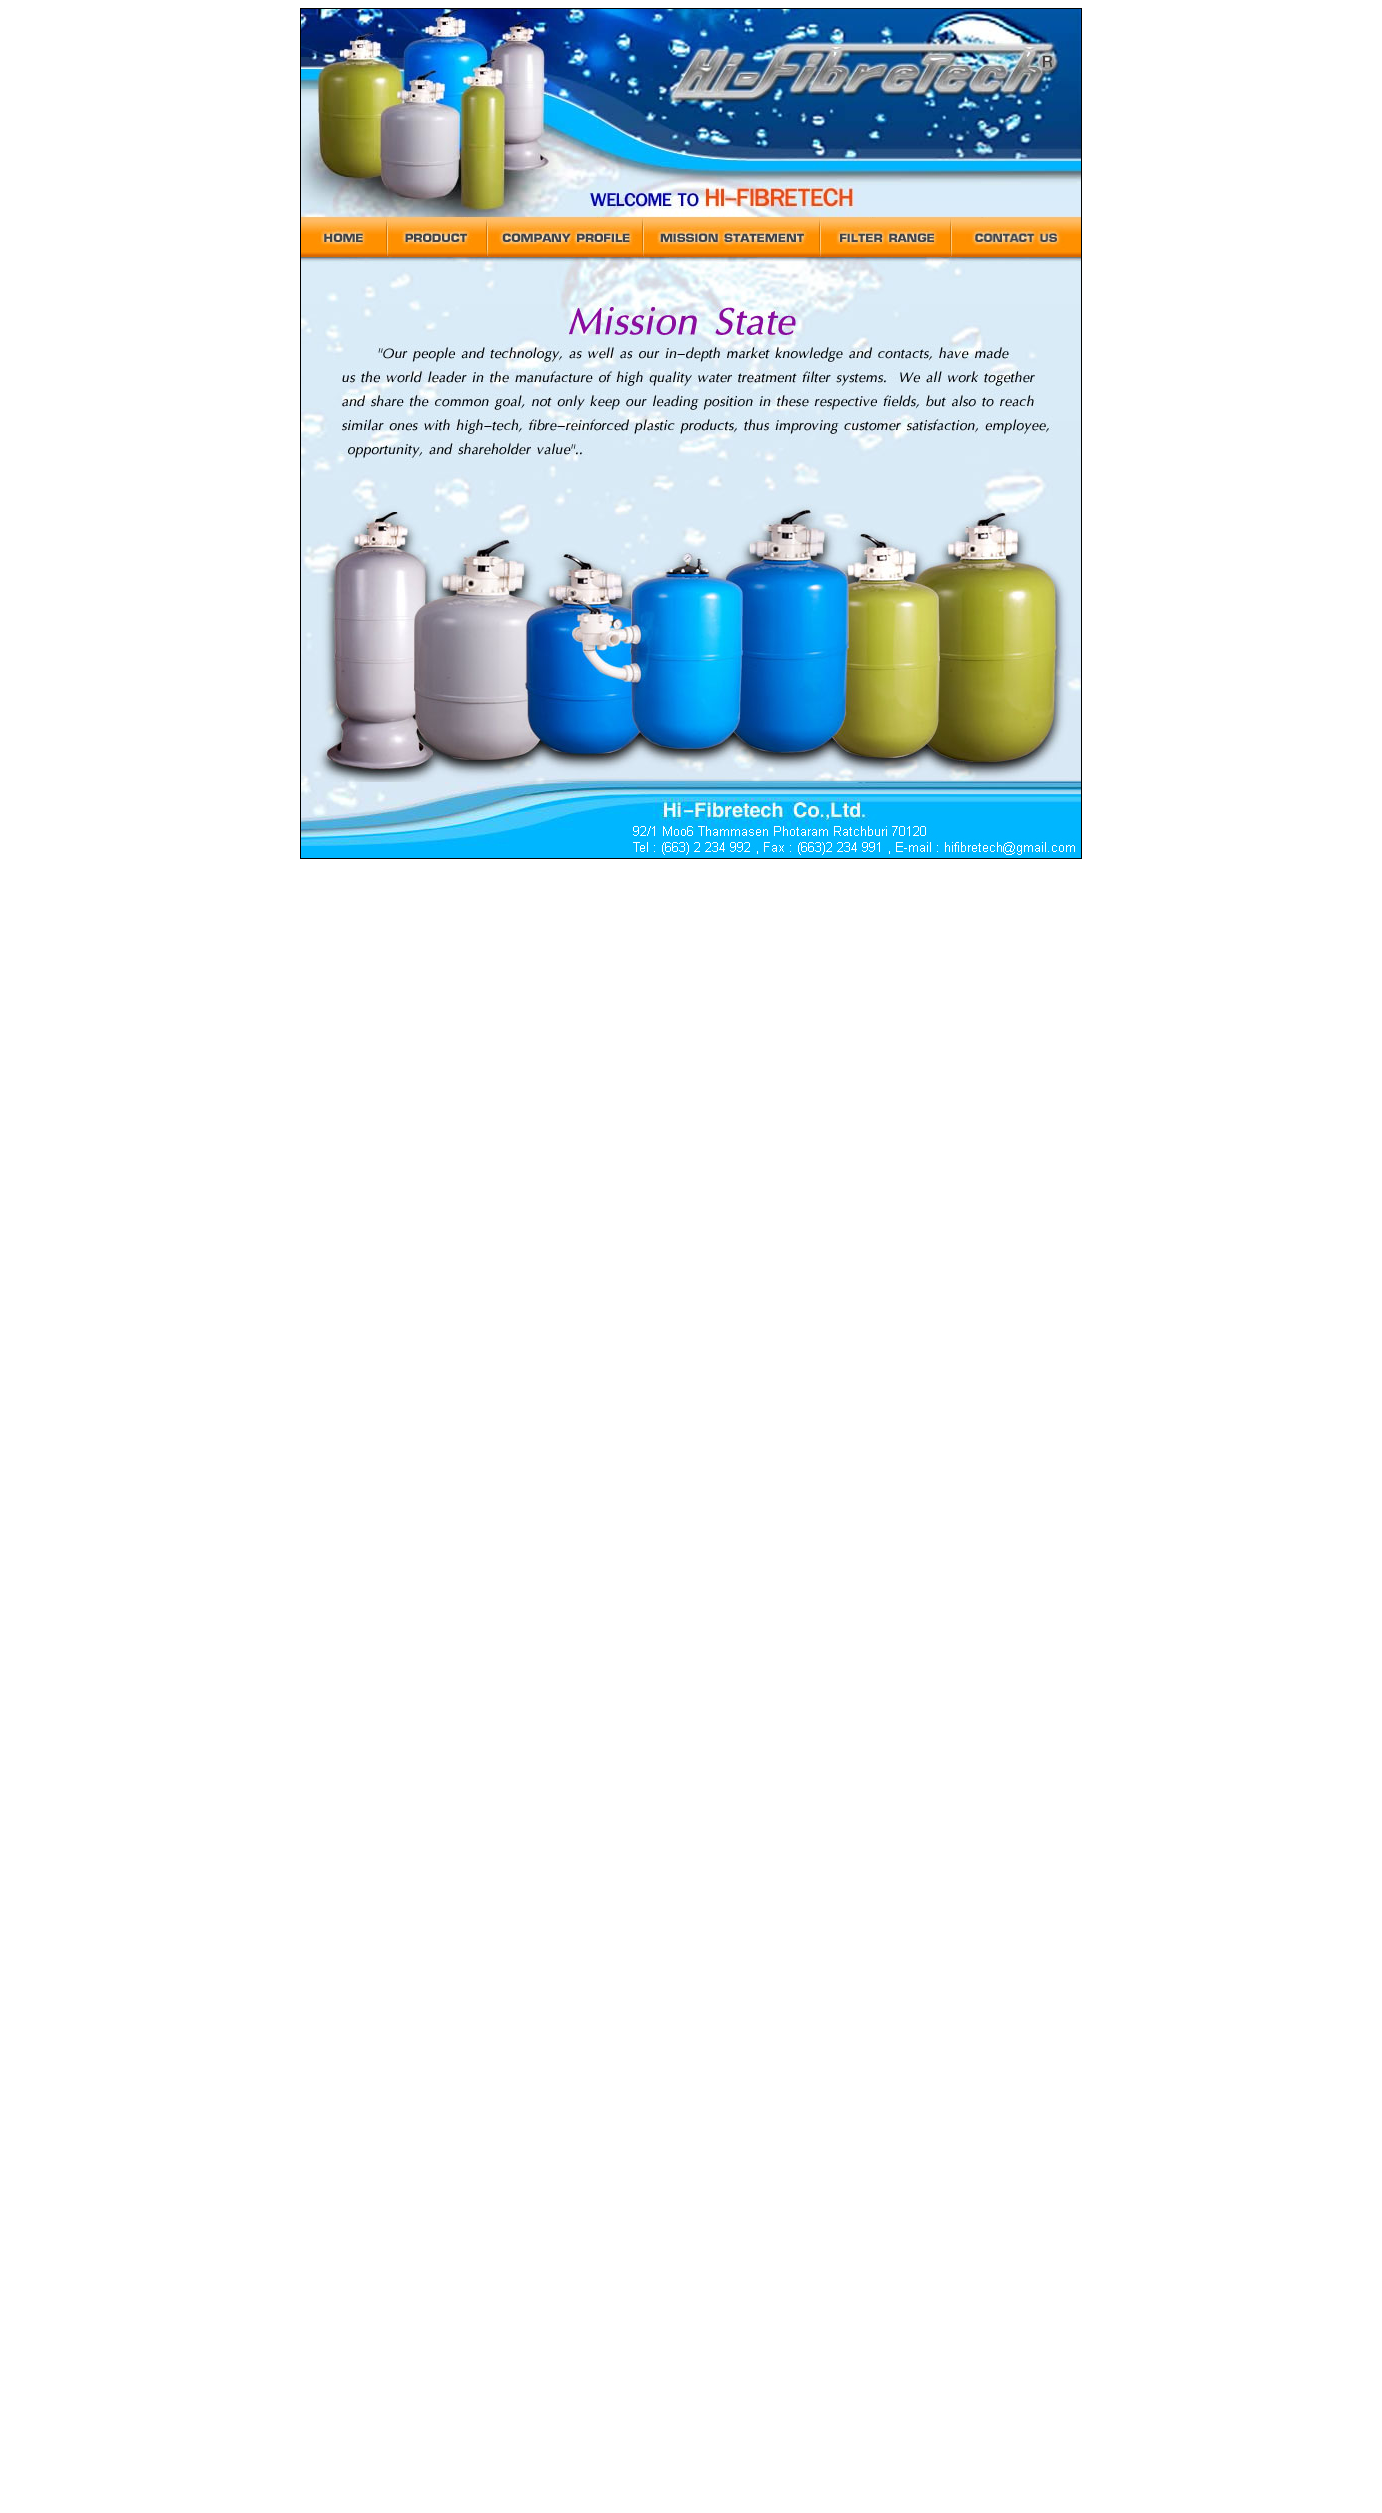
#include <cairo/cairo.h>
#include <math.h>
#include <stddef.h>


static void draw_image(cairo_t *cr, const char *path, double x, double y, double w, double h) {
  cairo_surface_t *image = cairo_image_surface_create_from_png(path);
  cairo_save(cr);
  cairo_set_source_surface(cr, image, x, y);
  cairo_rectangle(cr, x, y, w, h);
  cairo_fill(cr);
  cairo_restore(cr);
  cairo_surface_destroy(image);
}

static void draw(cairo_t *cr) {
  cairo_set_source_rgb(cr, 1, 1, 1);
  cairo_paint(cr);
  cairo_rectangle(cr, 300.5, 8.5, 781, 850);
  cairo_set_source_rgb(cr, 0, 0, 0);
  cairo_set_line_width(cr, 1);
  cairo_stroke(cr);
  draw_image(cr, "images/1.png", 301, 9, 780, 209);
  draw_image(cr, "images/2.png", 301, 218, 84, 38);
  draw_image(cr, "images/3.png", 385, 218, 100, 38);
  draw_image(cr, "images/4.png", 485, 218, 156, 38);
  draw_image(cr, "images/5.png", 641, 218, 177, 38);
  draw_image(cr, "images/6.png", 818, 218, 131, 38);
  draw_image(cr, "images/7.png", 949, 218, 132, 38);
  draw_image(cr, "images/8.png", 301, 256, 780, 526);
  draw_image(cr, "images/9.png", 301, 782, 780, 76);
}

int main(void) {
  cairo_surface_t *surface = cairo_image_surface_create(CAIRO_FORMAT_RGB24, 1382, 2513);
  cairo_t *cr = cairo_create(surface);
  cairo_font_options_t *options = cairo_font_options_create();
  cairo_font_options_set_hint_metrics(options, CAIRO_HINT_METRICS_OFF);
  cairo_font_options_set_hint_style(options, CAIRO_HINT_STYLE_NONE);
  cairo_set_font_options(cr, options);
  cairo_set_miter_limit(cr, 4);
  draw(cr);
  cairo_surface_write_to_png(surface, "out.png");
  cairo_font_options_destroy(options);
  cairo_destroy(cr);
  cairo_surface_destroy(surface);
  return 0;
}
